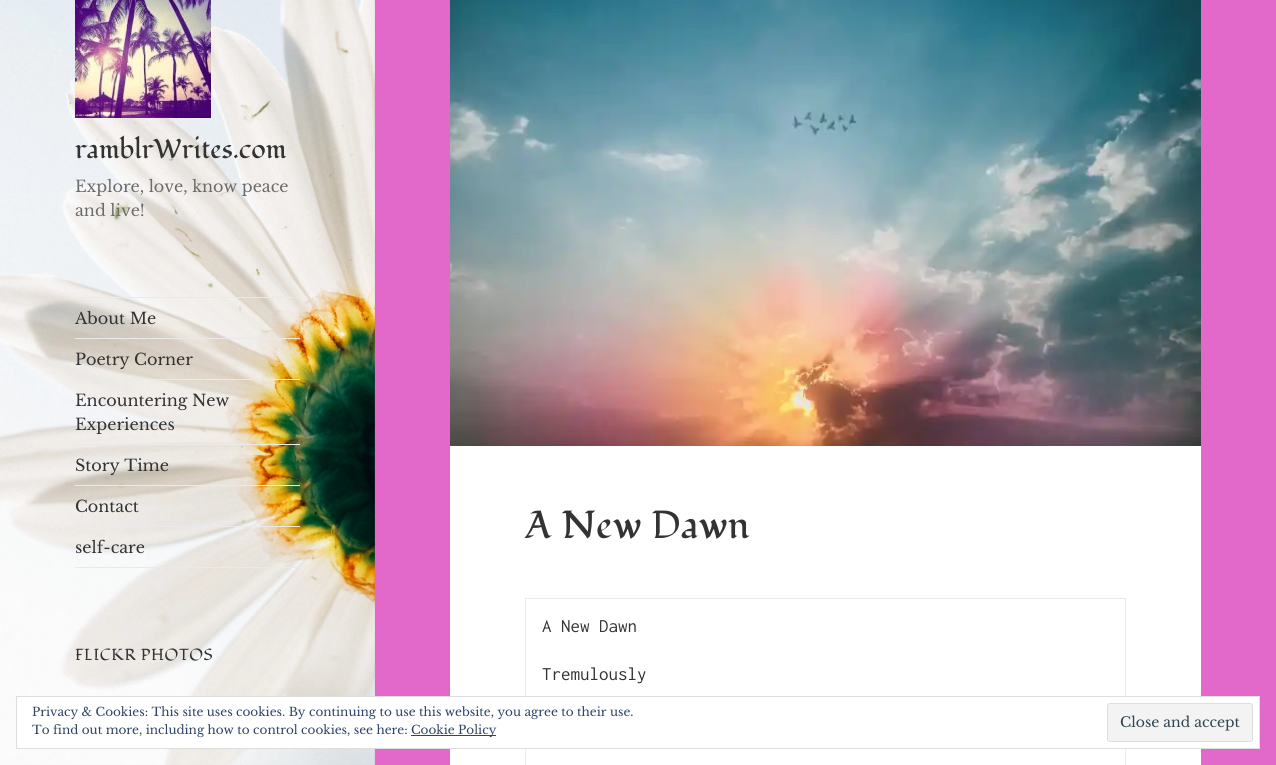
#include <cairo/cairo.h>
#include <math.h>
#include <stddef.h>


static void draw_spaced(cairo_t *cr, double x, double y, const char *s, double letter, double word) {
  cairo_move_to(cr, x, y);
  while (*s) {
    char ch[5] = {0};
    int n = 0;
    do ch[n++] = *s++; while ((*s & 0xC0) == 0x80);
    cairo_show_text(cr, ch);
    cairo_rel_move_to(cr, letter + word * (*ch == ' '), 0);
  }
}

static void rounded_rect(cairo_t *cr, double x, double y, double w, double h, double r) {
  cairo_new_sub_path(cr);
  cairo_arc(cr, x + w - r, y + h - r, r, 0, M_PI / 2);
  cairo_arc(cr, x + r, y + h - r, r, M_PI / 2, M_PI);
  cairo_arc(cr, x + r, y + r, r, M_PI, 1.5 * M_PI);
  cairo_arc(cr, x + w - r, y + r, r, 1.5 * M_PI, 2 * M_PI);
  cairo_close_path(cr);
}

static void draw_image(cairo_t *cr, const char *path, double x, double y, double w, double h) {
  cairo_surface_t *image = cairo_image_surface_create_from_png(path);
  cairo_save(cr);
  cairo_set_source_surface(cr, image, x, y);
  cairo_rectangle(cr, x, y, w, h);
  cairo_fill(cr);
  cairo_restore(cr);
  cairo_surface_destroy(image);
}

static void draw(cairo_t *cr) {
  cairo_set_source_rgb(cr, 226 / 255.0, 105 / 255.0, 202 / 255.0);
  cairo_paint(cr);
  draw_image(cr, "images/1.png", 0, 0, 375, 765);
  draw_image(cr, "images/2.png", 75, 0, 136, 118);
  cairo_set_source_rgb(cr, 234 / 255.0, 234 / 255.0, 234 / 255.0);
  cairo_rectangle(cr, 75, 297, 225, 1);
  cairo_fill(cr);
  cairo_rectangle(cr, 75, 567, 225, 1);
  cairo_fill(cr);
  cairo_rectangle(cr, 75, 338, 225, 1);
  cairo_fill(cr);
  cairo_rectangle(cr, 75, 379, 225, 1);
  cairo_fill(cr);
  cairo_rectangle(cr, 75, 444, 225, 1);
  cairo_fill(cr);
  cairo_rectangle(cr, 75, 485, 225, 1);
  cairo_fill(cr);
  cairo_rectangle(cr, 75, 526, 225, 1);
  cairo_fill(cr);
  cairo_set_source_rgb(cr, 1, 1, 1);
  cairo_rectangle(cr, 450, 446, 751, 319);
  cairo_fill(cr);
  draw_image(cr, "images/3.png", 450, 0, 751, 446);
  cairo_rectangle(cr, 525.5, 598.5, 600, 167);
  cairo_set_source_rgb(cr, 233 / 255.0, 233 / 255.0, 233 / 255.0);
  cairo_set_line_width(cr, 1);
  cairo_stroke(cr);
  cairo_set_source_rgb(cr, 1, 1, 1);
  cairo_rectangle(cr, 16.5, 696.5, 1243, 52);
  cairo_fill_preserve(cr);
  cairo_set_source_rgb(cr, 222 / 255.0, 222 / 255.0, 222 / 255.0);
  cairo_stroke(cr);
  cairo_set_source_rgb(cr, 46 / 255.0, 68 / 255.0, 103 / 255.0);
  cairo_rectangle(cr, 411, 735, 85, 1);
  cairo_fill(cr);
  cairo_set_source_rgb(cr, 243 / 255.0, 243 / 255.0, 243 / 255.0);
  rounded_rect(cr, 1107.5, 703.5, 145, 38, 2.5);
  cairo_fill_preserve(cr);
  cairo_set_source_rgb(cr, 222 / 255.0, 222 / 255.0, 222 / 255.0);
  cairo_stroke(cr);
  cairo_select_font_face(cr, "Fondamento", CAIRO_FONT_SLANT_NORMAL, CAIRO_FONT_WEIGHT_NORMAL);
  cairo_set_font_size(cr, 27);
  cairo_set_source_rgb(cr, 51 / 255.0, 51 / 255.0, 51 / 255.0);
  cairo_move_to(cr, 75, 158);
  cairo_show_text(cr, "ramblrWrites.com");
  cairo_select_font_face(cr, "Libre Baskerville", CAIRO_FONT_SLANT_NORMAL, CAIRO_FONT_WEIGHT_NORMAL);
  cairo_set_font_size(cr, 16);
  cairo_set_source_rgb(cr, 108 / 255.0, 107 / 255.0, 107 / 255.0);
  cairo_move_to(cr, 75, 192);
  cairo_show_text(cr, "Explore, love, know peace");
  cairo_move_to(cr, 75, 216);
  cairo_show_text(cr, "and live!");
  cairo_set_source_rgb(cr, 51 / 255.0, 51 / 255.0, 51 / 255.0);
  cairo_move_to(cr, 75, 324);
  cairo_show_text(cr, "About Me");
  cairo_move_to(cr, 75, 365);
  cairo_show_text(cr, "Poetry Corner");
  cairo_move_to(cr, 75, 406);
  cairo_show_text(cr, "Encountering New");
  cairo_move_to(cr, 75, 430);
  cairo_show_text(cr, "Experiences");
  cairo_move_to(cr, 75, 471);
  cairo_show_text(cr, "Story Time");
  cairo_move_to(cr, 75, 512);
  cairo_show_text(cr, "Contact");
  cairo_move_to(cr, 75, 553);
  cairo_show_text(cr, "self-care");
  cairo_select_font_face(cr, "Fondamento", CAIRO_FONT_SLANT_NORMAL, CAIRO_FONT_WEIGHT_NORMAL);
  draw_spaced(cr, 75, 660, "FLICKR PHOTOS", 0.6, 0);
  cairo_set_font_size(cr, 39);
  cairo_move_to(cr, 525, 538);
  cairo_show_text(cr, "A New Dawn");
  cairo_select_font_face(cr, "Inconsolata", CAIRO_FONT_SLANT_NORMAL, CAIRO_FONT_WEIGHT_NORMAL);
  cairo_set_font_size(cr, 19);
  cairo_move_to(cr, 542, 632);
  cairo_show_text(cr, "A New Dawn");
  cairo_move_to(cr, 542, 680);
  cairo_show_text(cr, "Tremulously");
  cairo_select_font_face(cr, "Libre Baskerville", CAIRO_FONT_SLANT_NORMAL, CAIRO_FONT_WEIGHT_NORMAL);
  cairo_set_font_size(cr, 12);
  cairo_set_source_rgb(cr, 46 / 255.0, 68 / 255.0, 103 / 255.0);
  cairo_move_to(cr, 32, 716);
  cairo_show_text(cr, "Privacy & Cookies: This site uses cookies. By continuing to use this website, you agree to their use.");
  cairo_move_to(cr, 32, 734);
  cairo_show_text(cr, "To find out more, including how to control cookies, see here:");
  cairo_move_to(cr, 411, 734);
  cairo_show_text(cr, "Cookie Policy");
  cairo_set_font_size(cr, 14);
  cairo_set_source_rgb(cr, 46 / 255.0, 68 / 255.0, 83 / 255.0);
  cairo_move_to(cr, 1120, 727);
  cairo_show_text(cr, "Close and accept");
}

int main(void) {
  cairo_surface_t *surface = cairo_image_surface_create(CAIRO_FORMAT_RGB24, 1276, 765);
  cairo_t *cr = cairo_create(surface);
  cairo_font_options_t *options = cairo_font_options_create();
  cairo_font_options_set_hint_metrics(options, CAIRO_HINT_METRICS_OFF);
  cairo_font_options_set_hint_style(options, CAIRO_HINT_STYLE_NONE);
  cairo_set_font_options(cr, options);
  cairo_set_miter_limit(cr, 4);
  draw(cr);
  cairo_surface_write_to_png(surface, "out.png");
  cairo_font_options_destroy(options);
  cairo_destroy(cr);
  cairo_surface_destroy(surface);
  return 0;
}
